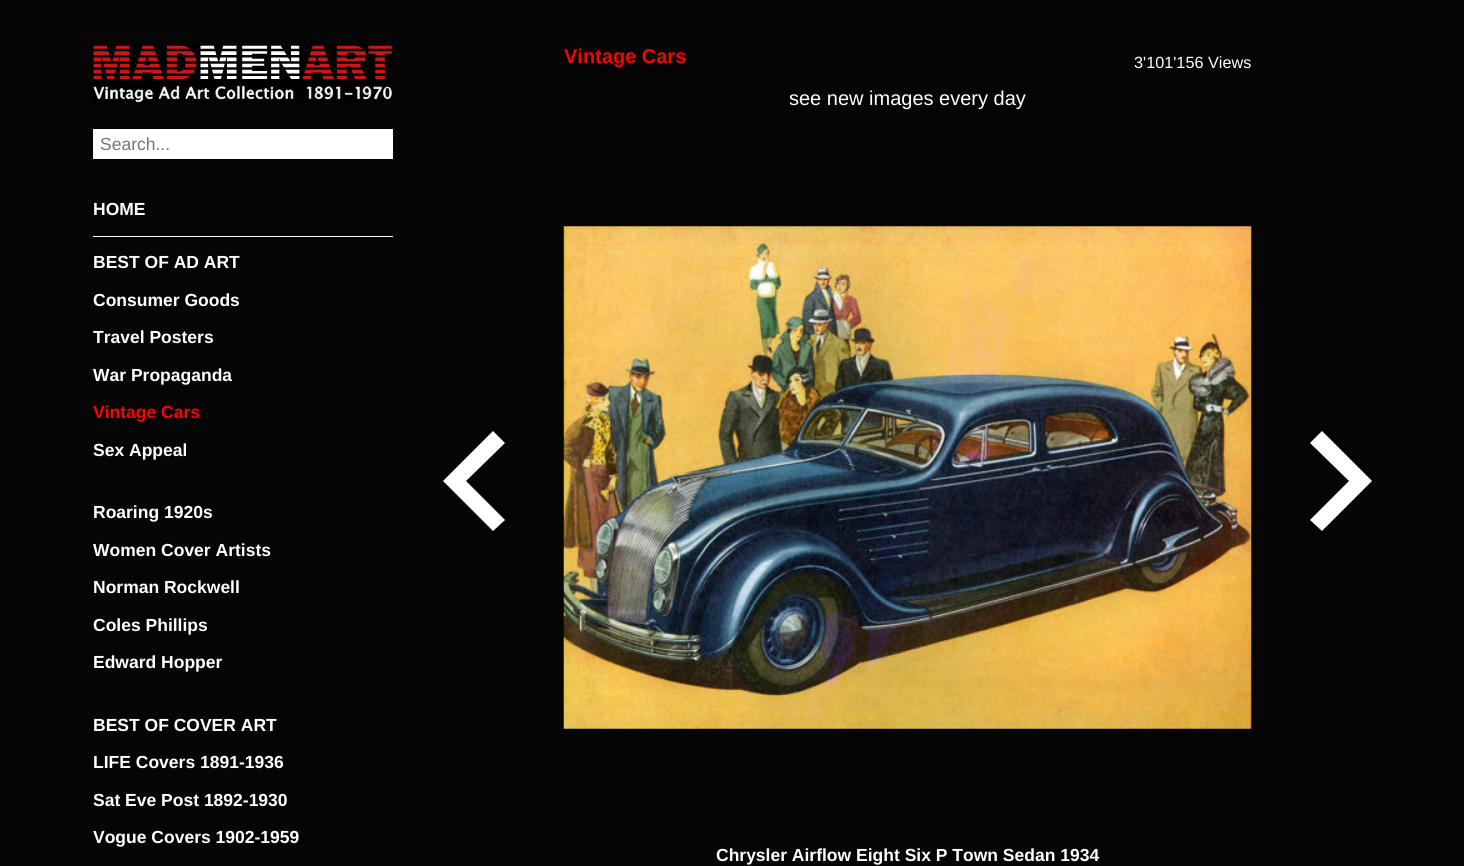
#include <cairo/cairo.h>
#include <math.h>
#include <stddef.h>


static void draw_image(cairo_t *cr, const char *path, double x, double y, double w, double h) {
  cairo_surface_t *image = cairo_image_surface_create_from_png(path);
  cairo_save(cr);
  cairo_set_source_surface(cr, image, x, y);
  cairo_rectangle(cr, x, y, w, h);
  cairo_fill(cr);
  cairo_restore(cr);
  cairo_surface_destroy(image);
}

static void draw(cairo_t *cr) {
  cairo_set_source_rgb(cr, 5 / 255.0, 5 / 255.0, 5 / 255.0);
  cairo_paint(cr);
  draw_image(cr, "images/1.png", 93, 44, 299, 59);
  cairo_set_source_rgb(cr, 1, 1, 1);
  cairo_rectangle(cr, 93, 129, 300, 30);
  cairo_fill(cr);
  cairo_rectangle(cr, 93, 236, 300, 1);
  cairo_fill(cr);
  draw_image(cr, "images/2.png", 563, 226, 689, 503);
  cairo_new_path(cr);
  cairo_move_to(cr, 493, 531);
  cairo_line_to(cr, 505, 520);
  cairo_line_to(cr, 466, 481);
  cairo_line_to(cr, 505, 443);
  cairo_line_to(cr, 493, 431);
  cairo_line_to(cr, 443, 481);
  cairo_close_path(cr);
  cairo_fill(cr);
  cairo_new_path(cr);
  cairo_move_to(cr, 1322, 431);
  cairo_line_to(cr, 1310, 443);
  cairo_line_to(cr, 1349, 481);
  cairo_line_to(cr, 1310, 520);
  cairo_line_to(cr, 1322, 531);
  cairo_line_to(cr, 1372, 481);
  cairo_close_path(cr);
  cairo_fill(cr);
  cairo_select_font_face(cr, "Liberation Sans", CAIRO_FONT_SLANT_NORMAL, CAIRO_FONT_WEIGHT_NORMAL);
  cairo_set_font_size(cr, 17.5);
  cairo_set_source_rgb(cr, 117 / 255.0, 117 / 255.0, 117 / 255.0);
  cairo_move_to(cr, 100, 150);
  cairo_show_text(cr, "Search...");
  cairo_select_font_face(cr, "Liberation Sans", CAIRO_FONT_SLANT_NORMAL, CAIRO_FONT_WEIGHT_BOLD);
  cairo_set_source_rgb(cr, 1, 1, 1);
  cairo_move_to(cr, 93, 215);
  cairo_show_text(cr, "HOME");
  cairo_move_to(cr, 93, 268);
  cairo_show_text(cr, "BEST OF AD ART");
  cairo_move_to(cr, 93, 306);
  cairo_show_text(cr, "Consumer Goods");
  cairo_move_to(cr, 93, 343);
  cairo_show_text(cr, "Travel Posters");
  cairo_move_to(cr, 93, 381);
  cairo_show_text(cr, "War Propaganda");
  cairo_set_source_rgb(cr, 1, 0, 0);
  cairo_move_to(cr, 93, 418);
  cairo_show_text(cr, "Vintage Cars");
  cairo_set_source_rgb(cr, 1, 1, 1);
  cairo_move_to(cr, 93, 456);
  cairo_show_text(cr, "Sex Appeal");
  cairo_move_to(cr, 93, 518);
  cairo_show_text(cr, "Roaring 1920s");
  cairo_move_to(cr, 93, 556);
  cairo_show_text(cr, "Women Cover Artists");
  cairo_move_to(cr, 93, 593);
  cairo_show_text(cr, "Norman Rockwell");
  cairo_move_to(cr, 93, 631);
  cairo_show_text(cr, "Coles Phillips");
  cairo_move_to(cr, 93, 668);
  cairo_show_text(cr, "Edward Hopper");
  cairo_move_to(cr, 93, 731);
  cairo_show_text(cr, "BEST OF COVER ART");
  cairo_move_to(cr, 93, 768);
  cairo_show_text(cr, "LIFE Covers 1891-1936");
  cairo_move_to(cr, 93, 806);
  cairo_show_text(cr, "Sat Eve Post 1892-1930");
  cairo_move_to(cr, 93, 843);
  cairo_show_text(cr, "Vogue Covers 1902-1959");
  cairo_set_font_size(cr, 20);
  cairo_set_source_rgb(cr, 1, 0, 0);
  cairo_move_to(cr, 564, 63);
  cairo_show_text(cr, "Vintage Cars");
  cairo_select_font_face(cr, "Liberation Sans", CAIRO_FONT_SLANT_NORMAL, CAIRO_FONT_WEIGHT_NORMAL);
  cairo_set_font_size(cr, 16.25);
  cairo_set_source_rgb(cr, 1, 1, 1);
  cairo_move_to(cr, 1134, 68);
  cairo_show_text(cr, "3'101'156 Views");
  cairo_set_font_size(cr, 20);
  cairo_move_to(cr, 789, 105);
  cairo_show_text(cr, "see new images every day");
  cairo_select_font_face(cr, "Liberation Sans", CAIRO_FONT_SLANT_NORMAL, CAIRO_FONT_WEIGHT_BOLD);
  cairo_set_font_size(cr, 17.5);
  cairo_move_to(cr, 716, 861);
  cairo_show_text(cr, "Chrysler Airflow Eight Six P Town Sedan 1934");
}

int main(void) {
  cairo_surface_t *surface = cairo_image_surface_create(CAIRO_FORMAT_RGB24, 1464, 866);
  cairo_t *cr = cairo_create(surface);
  cairo_font_options_t *options = cairo_font_options_create();
  cairo_font_options_set_hint_metrics(options, CAIRO_HINT_METRICS_OFF);
  cairo_font_options_set_hint_style(options, CAIRO_HINT_STYLE_NONE);
  cairo_set_font_options(cr, options);
  cairo_set_miter_limit(cr, 4);
  draw(cr);
  cairo_surface_write_to_png(surface, "out.png");
  cairo_font_options_destroy(options);
  cairo_destroy(cr);
  cairo_surface_destroy(surface);
  return 0;
}
